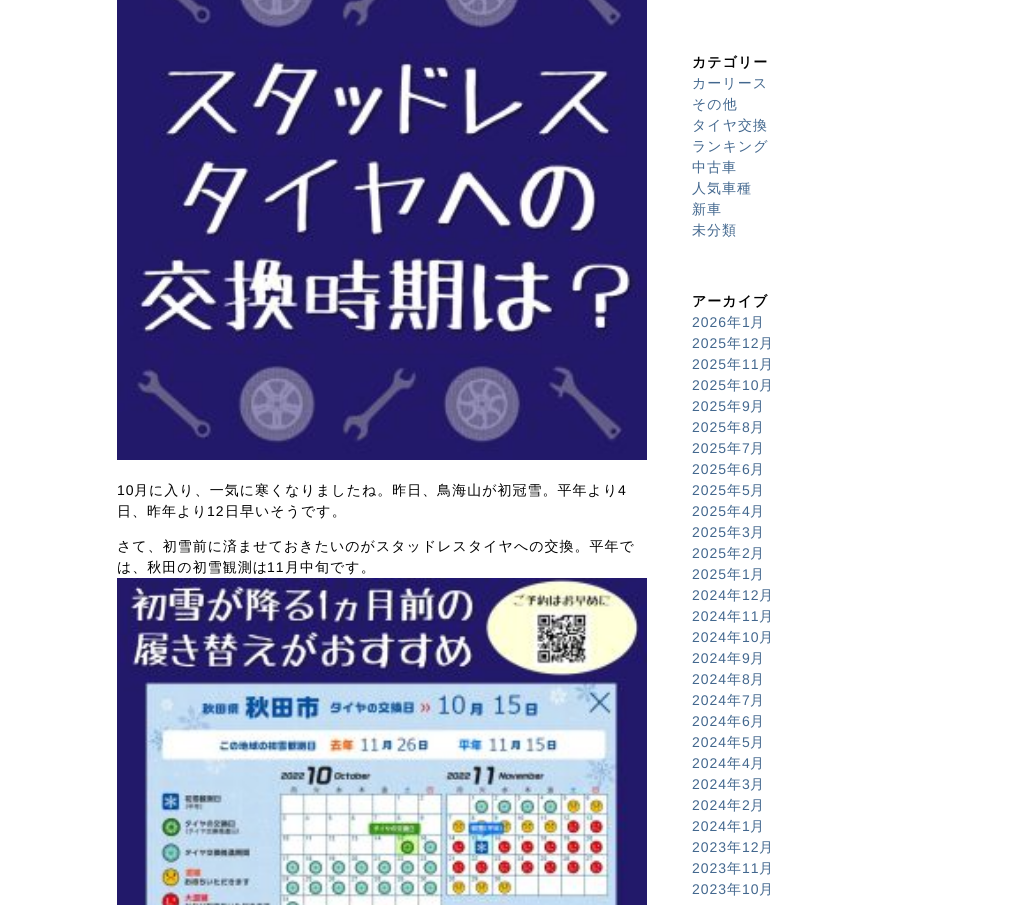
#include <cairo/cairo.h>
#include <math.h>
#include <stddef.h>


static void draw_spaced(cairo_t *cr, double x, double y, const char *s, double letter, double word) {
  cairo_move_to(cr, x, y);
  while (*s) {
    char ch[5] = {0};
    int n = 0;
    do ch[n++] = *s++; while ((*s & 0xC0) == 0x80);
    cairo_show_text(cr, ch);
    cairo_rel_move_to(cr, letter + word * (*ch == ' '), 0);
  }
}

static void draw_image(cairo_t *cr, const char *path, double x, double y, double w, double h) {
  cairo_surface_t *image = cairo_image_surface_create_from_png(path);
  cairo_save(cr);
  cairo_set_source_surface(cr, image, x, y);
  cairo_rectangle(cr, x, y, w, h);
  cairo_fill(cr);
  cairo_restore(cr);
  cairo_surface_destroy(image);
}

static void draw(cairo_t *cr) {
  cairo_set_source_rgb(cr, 1, 1, 1);
  cairo_paint(cr);
  draw_image(cr, "images/1.png", 117, 0, 530, 460);
  draw_image(cr, "images/2.png", 117, 578, 530, 327);
  cairo_select_font_face(cr, "Liberation Sans", CAIRO_FONT_SLANT_NORMAL, CAIRO_FONT_WEIGHT_NORMAL);
  cairo_set_font_size(cr, 14);
  cairo_set_source_rgb(cr, 0, 0, 0);
  draw_spaced(cr, 117, 495, "10", 1, 0);
  cairo_select_font_face(cr, "WenQuanYi Zen Hei Medium", CAIRO_FONT_SLANT_NORMAL, CAIRO_FONT_WEIGHT_NORMAL);
  draw_spaced(cr, 134, 495, "月に入り、一気に寒くなりましたね。昨日、鳥海山が初冠雪。平年より", 1, 0);
  cairo_select_font_face(cr, "Liberation Sans", CAIRO_FONT_SLANT_NORMAL, CAIRO_FONT_WEIGHT_NORMAL);
  draw_spaced(cr, 618, 495, "4", 1, 0);
  cairo_select_font_face(cr, "WenQuanYi Zen Hei Medium", CAIRO_FONT_SLANT_NORMAL, CAIRO_FONT_WEIGHT_NORMAL);
  draw_spaced(cr, 117, 516, "日、昨年より", 1, 0);
  cairo_select_font_face(cr, "Liberation Sans", CAIRO_FONT_SLANT_NORMAL, CAIRO_FONT_WEIGHT_NORMAL);
  draw_spaced(cr, 207, 516, "12", 1, 0);
  cairo_select_font_face(cr, "WenQuanYi Zen Hei Medium", CAIRO_FONT_SLANT_NORMAL, CAIRO_FONT_WEIGHT_NORMAL);
  draw_spaced(cr, 225, 516, "日早いそうです。", 1, 0);
  draw_spaced(cr, 117, 551, "さて、初雪前に済ませておきたいのがスタッドレスタイヤへの交換。平年で", 1, 0);
  draw_spaced(cr, 117, 572, "は、秋田の初雪観測は", 1, 0);
  cairo_select_font_face(cr, "Liberation Sans", CAIRO_FONT_SLANT_NORMAL, CAIRO_FONT_WEIGHT_NORMAL);
  draw_spaced(cr, 267, 572, "11", 1, 0);
  cairo_select_font_face(cr, "WenQuanYi Zen Hei Medium", CAIRO_FONT_SLANT_NORMAL, CAIRO_FONT_WEIGHT_NORMAL);
  draw_spaced(cr, 285, 572, "月中旬です。", 1, 0);
  cairo_select_font_face(cr, "WenQuanYi Zen Hei", CAIRO_FONT_SLANT_NORMAL, CAIRO_FONT_WEIGHT_BOLD);
  draw_spaced(cr, 692, 67, "カテゴリー", 1, 0);
  cairo_select_font_face(cr, "WenQuanYi Zen Hei Medium", CAIRO_FONT_SLANT_NORMAL, CAIRO_FONT_WEIGHT_NORMAL);
  cairo_set_source_rgb(cr, 66 / 255.0, 103 / 255.0, 142 / 255.0);
  draw_spaced(cr, 692, 88, "カーリース", 1, 0);
  draw_spaced(cr, 692, 109, "その他", 1, 0);
  draw_spaced(cr, 692, 130, "タイヤ交換", 1, 0);
  draw_spaced(cr, 692, 151, "ランキング", 1, 0);
  draw_spaced(cr, 692, 172, "中古車", 1, 0);
  draw_spaced(cr, 692, 193, "人気車種", 1, 0);
  draw_spaced(cr, 692, 214, "新車", 1, 0);
  draw_spaced(cr, 692, 235, "未分類", 1, 0);
  cairo_select_font_face(cr, "WenQuanYi Zen Hei", CAIRO_FONT_SLANT_NORMAL, CAIRO_FONT_WEIGHT_BOLD);
  cairo_set_source_rgb(cr, 0, 0, 0);
  draw_spaced(cr, 692, 306, "アーカイブ", 1, 0);
  cairo_select_font_face(cr, "Liberation Sans", CAIRO_FONT_SLANT_NORMAL, CAIRO_FONT_WEIGHT_NORMAL);
  cairo_set_source_rgb(cr, 66 / 255.0, 103 / 255.0, 142 / 255.0);
  draw_spaced(cr, 692, 327, "2026", 1, 0);
  cairo_select_font_face(cr, "WenQuanYi Zen Hei Medium", CAIRO_FONT_SLANT_NORMAL, CAIRO_FONT_WEIGHT_NORMAL);
  draw_spaced(cr, 727, 327, "年", 1, 0);
  cairo_select_font_face(cr, "Liberation Sans", CAIRO_FONT_SLANT_NORMAL, CAIRO_FONT_WEIGHT_NORMAL);
  draw_spaced(cr, 742, 327, "1", 1, 0);
  cairo_select_font_face(cr, "WenQuanYi Zen Hei Medium", CAIRO_FONT_SLANT_NORMAL, CAIRO_FONT_WEIGHT_NORMAL);
  draw_spaced(cr, 750, 327, "月", 1, 0);
  cairo_select_font_face(cr, "Liberation Sans", CAIRO_FONT_SLANT_NORMAL, CAIRO_FONT_WEIGHT_NORMAL);
  draw_spaced(cr, 692, 348, "2025", 1, 0);
  cairo_select_font_face(cr, "WenQuanYi Zen Hei Medium", CAIRO_FONT_SLANT_NORMAL, CAIRO_FONT_WEIGHT_NORMAL);
  draw_spaced(cr, 727, 348, "年", 1, 0);
  cairo_select_font_face(cr, "Liberation Sans", CAIRO_FONT_SLANT_NORMAL, CAIRO_FONT_WEIGHT_NORMAL);
  draw_spaced(cr, 742, 348, "12", 1, 0);
  cairo_select_font_face(cr, "WenQuanYi Zen Hei Medium", CAIRO_FONT_SLANT_NORMAL, CAIRO_FONT_WEIGHT_NORMAL);
  draw_spaced(cr, 759, 348, "月", 1, 0);
  cairo_select_font_face(cr, "Liberation Sans", CAIRO_FONT_SLANT_NORMAL, CAIRO_FONT_WEIGHT_NORMAL);
  draw_spaced(cr, 692, 369, "2025", 1, 0);
  cairo_select_font_face(cr, "WenQuanYi Zen Hei Medium", CAIRO_FONT_SLANT_NORMAL, CAIRO_FONT_WEIGHT_NORMAL);
  draw_spaced(cr, 727, 369, "年", 1, 0);
  cairo_select_font_face(cr, "Liberation Sans", CAIRO_FONT_SLANT_NORMAL, CAIRO_FONT_WEIGHT_NORMAL);
  draw_spaced(cr, 742, 369, "11", 1, 0);
  cairo_select_font_face(cr, "WenQuanYi Zen Hei Medium", CAIRO_FONT_SLANT_NORMAL, CAIRO_FONT_WEIGHT_NORMAL);
  draw_spaced(cr, 759, 369, "月", 1, 0);
  cairo_select_font_face(cr, "Liberation Sans", CAIRO_FONT_SLANT_NORMAL, CAIRO_FONT_WEIGHT_NORMAL);
  draw_spaced(cr, 692, 390, "2025", 1, 0);
  cairo_select_font_face(cr, "WenQuanYi Zen Hei Medium", CAIRO_FONT_SLANT_NORMAL, CAIRO_FONT_WEIGHT_NORMAL);
  draw_spaced(cr, 727, 390, "年", 1, 0);
  cairo_select_font_face(cr, "Liberation Sans", CAIRO_FONT_SLANT_NORMAL, CAIRO_FONT_WEIGHT_NORMAL);
  draw_spaced(cr, 742, 390, "10", 1, 0);
  cairo_select_font_face(cr, "WenQuanYi Zen Hei Medium", CAIRO_FONT_SLANT_NORMAL, CAIRO_FONT_WEIGHT_NORMAL);
  draw_spaced(cr, 759, 390, "月", 1, 0);
  cairo_select_font_face(cr, "Liberation Sans", CAIRO_FONT_SLANT_NORMAL, CAIRO_FONT_WEIGHT_NORMAL);
  draw_spaced(cr, 692, 411, "2025", 1, 0);
  cairo_select_font_face(cr, "WenQuanYi Zen Hei Medium", CAIRO_FONT_SLANT_NORMAL, CAIRO_FONT_WEIGHT_NORMAL);
  draw_spaced(cr, 727, 411, "年", 1, 0);
  cairo_select_font_face(cr, "Liberation Sans", CAIRO_FONT_SLANT_NORMAL, CAIRO_FONT_WEIGHT_NORMAL);
  draw_spaced(cr, 742, 411, "9", 1, 0);
  cairo_select_font_face(cr, "WenQuanYi Zen Hei Medium", CAIRO_FONT_SLANT_NORMAL, CAIRO_FONT_WEIGHT_NORMAL);
  draw_spaced(cr, 750, 411, "月", 1, 0);
  cairo_select_font_face(cr, "Liberation Sans", CAIRO_FONT_SLANT_NORMAL, CAIRO_FONT_WEIGHT_NORMAL);
  draw_spaced(cr, 692, 432, "2025", 1, 0);
  cairo_select_font_face(cr, "WenQuanYi Zen Hei Medium", CAIRO_FONT_SLANT_NORMAL, CAIRO_FONT_WEIGHT_NORMAL);
  draw_spaced(cr, 727, 432, "年", 1, 0);
  cairo_select_font_face(cr, "Liberation Sans", CAIRO_FONT_SLANT_NORMAL, CAIRO_FONT_WEIGHT_NORMAL);
  draw_spaced(cr, 742, 432, "8", 1, 0);
  cairo_select_font_face(cr, "WenQuanYi Zen Hei Medium", CAIRO_FONT_SLANT_NORMAL, CAIRO_FONT_WEIGHT_NORMAL);
  draw_spaced(cr, 750, 432, "月", 1, 0);
  cairo_select_font_face(cr, "Liberation Sans", CAIRO_FONT_SLANT_NORMAL, CAIRO_FONT_WEIGHT_NORMAL);
  draw_spaced(cr, 692, 453, "2025", 1, 0);
  cairo_select_font_face(cr, "WenQuanYi Zen Hei Medium", CAIRO_FONT_SLANT_NORMAL, CAIRO_FONT_WEIGHT_NORMAL);
  draw_spaced(cr, 727, 453, "年", 1, 0);
  cairo_select_font_face(cr, "Liberation Sans", CAIRO_FONT_SLANT_NORMAL, CAIRO_FONT_WEIGHT_NORMAL);
  draw_spaced(cr, 742, 453, "7", 1, 0);
  cairo_select_font_face(cr, "WenQuanYi Zen Hei Medium", CAIRO_FONT_SLANT_NORMAL, CAIRO_FONT_WEIGHT_NORMAL);
  draw_spaced(cr, 750, 453, "月", 1, 0);
  cairo_select_font_face(cr, "Liberation Sans", CAIRO_FONT_SLANT_NORMAL, CAIRO_FONT_WEIGHT_NORMAL);
  draw_spaced(cr, 692, 474, "2025", 1, 0);
  cairo_select_font_face(cr, "WenQuanYi Zen Hei Medium", CAIRO_FONT_SLANT_NORMAL, CAIRO_FONT_WEIGHT_NORMAL);
  draw_spaced(cr, 727, 474, "年", 1, 0);
  cairo_select_font_face(cr, "Liberation Sans", CAIRO_FONT_SLANT_NORMAL, CAIRO_FONT_WEIGHT_NORMAL);
  draw_spaced(cr, 742, 474, "6", 1, 0);
  cairo_select_font_face(cr, "WenQuanYi Zen Hei Medium", CAIRO_FONT_SLANT_NORMAL, CAIRO_FONT_WEIGHT_NORMAL);
  draw_spaced(cr, 750, 474, "月", 1, 0);
  cairo_select_font_face(cr, "Liberation Sans", CAIRO_FONT_SLANT_NORMAL, CAIRO_FONT_WEIGHT_NORMAL);
  draw_spaced(cr, 692, 495, "2025", 1, 0);
  cairo_select_font_face(cr, "WenQuanYi Zen Hei Medium", CAIRO_FONT_SLANT_NORMAL, CAIRO_FONT_WEIGHT_NORMAL);
  draw_spaced(cr, 727, 495, "年", 1, 0);
  cairo_select_font_face(cr, "Liberation Sans", CAIRO_FONT_SLANT_NORMAL, CAIRO_FONT_WEIGHT_NORMAL);
  draw_spaced(cr, 742, 495, "5", 1, 0);
  cairo_select_font_face(cr, "WenQuanYi Zen Hei Medium", CAIRO_FONT_SLANT_NORMAL, CAIRO_FONT_WEIGHT_NORMAL);
  draw_spaced(cr, 750, 495, "月", 1, 0);
  cairo_select_font_face(cr, "Liberation Sans", CAIRO_FONT_SLANT_NORMAL, CAIRO_FONT_WEIGHT_NORMAL);
  draw_spaced(cr, 692, 516, "2025", 1, 0);
  cairo_select_font_face(cr, "WenQuanYi Zen Hei Medium", CAIRO_FONT_SLANT_NORMAL, CAIRO_FONT_WEIGHT_NORMAL);
  draw_spaced(cr, 727, 516, "年", 1, 0);
  cairo_select_font_face(cr, "Liberation Sans", CAIRO_FONT_SLANT_NORMAL, CAIRO_FONT_WEIGHT_NORMAL);
  draw_spaced(cr, 742, 516, "4", 1, 0);
  cairo_select_font_face(cr, "WenQuanYi Zen Hei Medium", CAIRO_FONT_SLANT_NORMAL, CAIRO_FONT_WEIGHT_NORMAL);
  draw_spaced(cr, 750, 516, "月", 1, 0);
  cairo_select_font_face(cr, "Liberation Sans", CAIRO_FONT_SLANT_NORMAL, CAIRO_FONT_WEIGHT_NORMAL);
  draw_spaced(cr, 692, 537, "2025", 1, 0);
  cairo_select_font_face(cr, "WenQuanYi Zen Hei Medium", CAIRO_FONT_SLANT_NORMAL, CAIRO_FONT_WEIGHT_NORMAL);
  draw_spaced(cr, 727, 537, "年", 1, 0);
  cairo_select_font_face(cr, "Liberation Sans", CAIRO_FONT_SLANT_NORMAL, CAIRO_FONT_WEIGHT_NORMAL);
  draw_spaced(cr, 742, 537, "3", 1, 0);
  cairo_select_font_face(cr, "WenQuanYi Zen Hei Medium", CAIRO_FONT_SLANT_NORMAL, CAIRO_FONT_WEIGHT_NORMAL);
  draw_spaced(cr, 750, 537, "月", 1, 0);
  cairo_select_font_face(cr, "Liberation Sans", CAIRO_FONT_SLANT_NORMAL, CAIRO_FONT_WEIGHT_NORMAL);
  draw_spaced(cr, 692, 558, "2025", 1, 0);
  cairo_select_font_face(cr, "WenQuanYi Zen Hei Medium", CAIRO_FONT_SLANT_NORMAL, CAIRO_FONT_WEIGHT_NORMAL);
  draw_spaced(cr, 727, 558, "年", 1, 0);
  cairo_select_font_face(cr, "Liberation Sans", CAIRO_FONT_SLANT_NORMAL, CAIRO_FONT_WEIGHT_NORMAL);
  draw_spaced(cr, 742, 558, "2", 1, 0);
  cairo_select_font_face(cr, "WenQuanYi Zen Hei Medium", CAIRO_FONT_SLANT_NORMAL, CAIRO_FONT_WEIGHT_NORMAL);
  draw_spaced(cr, 750, 558, "月", 1, 0);
  cairo_select_font_face(cr, "Liberation Sans", CAIRO_FONT_SLANT_NORMAL, CAIRO_FONT_WEIGHT_NORMAL);
  draw_spaced(cr, 692, 579, "2025", 1, 0);
  cairo_select_font_face(cr, "WenQuanYi Zen Hei Medium", CAIRO_FONT_SLANT_NORMAL, CAIRO_FONT_WEIGHT_NORMAL);
  draw_spaced(cr, 727, 579, "年", 1, 0);
  cairo_select_font_face(cr, "Liberation Sans", CAIRO_FONT_SLANT_NORMAL, CAIRO_FONT_WEIGHT_NORMAL);
  draw_spaced(cr, 742, 579, "1", 1, 0);
  cairo_select_font_face(cr, "WenQuanYi Zen Hei Medium", CAIRO_FONT_SLANT_NORMAL, CAIRO_FONT_WEIGHT_NORMAL);
  draw_spaced(cr, 750, 579, "月", 1, 0);
  cairo_select_font_face(cr, "Liberation Sans", CAIRO_FONT_SLANT_NORMAL, CAIRO_FONT_WEIGHT_NORMAL);
  draw_spaced(cr, 692, 600, "2024", 1, 0);
  cairo_select_font_face(cr, "WenQuanYi Zen Hei Medium", CAIRO_FONT_SLANT_NORMAL, CAIRO_FONT_WEIGHT_NORMAL);
  draw_spaced(cr, 727, 600, "年", 1, 0);
  cairo_select_font_face(cr, "Liberation Sans", CAIRO_FONT_SLANT_NORMAL, CAIRO_FONT_WEIGHT_NORMAL);
  draw_spaced(cr, 742, 600, "12", 1, 0);
  cairo_select_font_face(cr, "WenQuanYi Zen Hei Medium", CAIRO_FONT_SLANT_NORMAL, CAIRO_FONT_WEIGHT_NORMAL);
  draw_spaced(cr, 759, 600, "月", 1, 0);
  cairo_select_font_face(cr, "Liberation Sans", CAIRO_FONT_SLANT_NORMAL, CAIRO_FONT_WEIGHT_NORMAL);
  draw_spaced(cr, 692, 621, "2024", 1, 0);
  cairo_select_font_face(cr, "WenQuanYi Zen Hei Medium", CAIRO_FONT_SLANT_NORMAL, CAIRO_FONT_WEIGHT_NORMAL);
  draw_spaced(cr, 727, 621, "年", 1, 0);
  cairo_select_font_face(cr, "Liberation Sans", CAIRO_FONT_SLANT_NORMAL, CAIRO_FONT_WEIGHT_NORMAL);
  draw_spaced(cr, 742, 621, "11", 1, 0);
  cairo_select_font_face(cr, "WenQuanYi Zen Hei Medium", CAIRO_FONT_SLANT_NORMAL, CAIRO_FONT_WEIGHT_NORMAL);
  draw_spaced(cr, 759, 621, "月", 1, 0);
  cairo_select_font_face(cr, "Liberation Sans", CAIRO_FONT_SLANT_NORMAL, CAIRO_FONT_WEIGHT_NORMAL);
  draw_spaced(cr, 692, 642, "2024", 1, 0);
  cairo_select_font_face(cr, "WenQuanYi Zen Hei Medium", CAIRO_FONT_SLANT_NORMAL, CAIRO_FONT_WEIGHT_NORMAL);
  draw_spaced(cr, 727, 642, "年", 1, 0);
  cairo_select_font_face(cr, "Liberation Sans", CAIRO_FONT_SLANT_NORMAL, CAIRO_FONT_WEIGHT_NORMAL);
  draw_spaced(cr, 742, 642, "10", 1, 0);
  cairo_select_font_face(cr, "WenQuanYi Zen Hei Medium", CAIRO_FONT_SLANT_NORMAL, CAIRO_FONT_WEIGHT_NORMAL);
  draw_spaced(cr, 759, 642, "月", 1, 0);
  cairo_select_font_face(cr, "Liberation Sans", CAIRO_FONT_SLANT_NORMAL, CAIRO_FONT_WEIGHT_NORMAL);
  draw_spaced(cr, 692, 663, "2024", 1, 0);
  cairo_select_font_face(cr, "WenQuanYi Zen Hei Medium", CAIRO_FONT_SLANT_NORMAL, CAIRO_FONT_WEIGHT_NORMAL);
  draw_spaced(cr, 727, 663, "年", 1, 0);
  cairo_select_font_face(cr, "Liberation Sans", CAIRO_FONT_SLANT_NORMAL, CAIRO_FONT_WEIGHT_NORMAL);
  draw_spaced(cr, 742, 663, "9", 1, 0);
  cairo_select_font_face(cr, "WenQuanYi Zen Hei Medium", CAIRO_FONT_SLANT_NORMAL, CAIRO_FONT_WEIGHT_NORMAL);
  draw_spaced(cr, 750, 663, "月", 1, 0);
  cairo_select_font_face(cr, "Liberation Sans", CAIRO_FONT_SLANT_NORMAL, CAIRO_FONT_WEIGHT_NORMAL);
  draw_spaced(cr, 692, 684, "2024", 1, 0);
  cairo_select_font_face(cr, "WenQuanYi Zen Hei Medium", CAIRO_FONT_SLANT_NORMAL, CAIRO_FONT_WEIGHT_NORMAL);
  draw_spaced(cr, 727, 684, "年", 1, 0);
  cairo_select_font_face(cr, "Liberation Sans", CAIRO_FONT_SLANT_NORMAL, CAIRO_FONT_WEIGHT_NORMAL);
  draw_spaced(cr, 742, 684, "8", 1, 0);
  cairo_select_font_face(cr, "WenQuanYi Zen Hei Medium", CAIRO_FONT_SLANT_NORMAL, CAIRO_FONT_WEIGHT_NORMAL);
  draw_spaced(cr, 750, 684, "月", 1, 0);
  cairo_select_font_face(cr, "Liberation Sans", CAIRO_FONT_SLANT_NORMAL, CAIRO_FONT_WEIGHT_NORMAL);
  draw_spaced(cr, 692, 705, "2024", 1, 0);
  cairo_select_font_face(cr, "WenQuanYi Zen Hei Medium", CAIRO_FONT_SLANT_NORMAL, CAIRO_FONT_WEIGHT_NORMAL);
  draw_spaced(cr, 727, 705, "年", 1, 0);
  cairo_select_font_face(cr, "Liberation Sans", CAIRO_FONT_SLANT_NORMAL, CAIRO_FONT_WEIGHT_NORMAL);
  draw_spaced(cr, 742, 705, "7", 1, 0);
  cairo_select_font_face(cr, "WenQuanYi Zen Hei Medium", CAIRO_FONT_SLANT_NORMAL, CAIRO_FONT_WEIGHT_NORMAL);
  draw_spaced(cr, 750, 705, "月", 1, 0);
  cairo_select_font_face(cr, "Liberation Sans", CAIRO_FONT_SLANT_NORMAL, CAIRO_FONT_WEIGHT_NORMAL);
  draw_spaced(cr, 692, 726, "2024", 1, 0);
  cairo_select_font_face(cr, "WenQuanYi Zen Hei Medium", CAIRO_FONT_SLANT_NORMAL, CAIRO_FONT_WEIGHT_NORMAL);
  draw_spaced(cr, 727, 726, "年", 1, 0);
  cairo_select_font_face(cr, "Liberation Sans", CAIRO_FONT_SLANT_NORMAL, CAIRO_FONT_WEIGHT_NORMAL);
  draw_spaced(cr, 742, 726, "6", 1, 0);
  cairo_select_font_face(cr, "WenQuanYi Zen Hei Medium", CAIRO_FONT_SLANT_NORMAL, CAIRO_FONT_WEIGHT_NORMAL);
  draw_spaced(cr, 750, 726, "月", 1, 0);
  cairo_select_font_face(cr, "Liberation Sans", CAIRO_FONT_SLANT_NORMAL, CAIRO_FONT_WEIGHT_NORMAL);
  draw_spaced(cr, 692, 747, "2024", 1, 0);
  cairo_select_font_face(cr, "WenQuanYi Zen Hei Medium", CAIRO_FONT_SLANT_NORMAL, CAIRO_FONT_WEIGHT_NORMAL);
  draw_spaced(cr, 727, 747, "年", 1, 0);
  cairo_select_font_face(cr, "Liberation Sans", CAIRO_FONT_SLANT_NORMAL, CAIRO_FONT_WEIGHT_NORMAL);
  draw_spaced(cr, 742, 747, "5", 1, 0);
  cairo_select_font_face(cr, "WenQuanYi Zen Hei Medium", CAIRO_FONT_SLANT_NORMAL, CAIRO_FONT_WEIGHT_NORMAL);
  draw_spaced(cr, 750, 747, "月", 1, 0);
  cairo_select_font_face(cr, "Liberation Sans", CAIRO_FONT_SLANT_NORMAL, CAIRO_FONT_WEIGHT_NORMAL);
  draw_spaced(cr, 692, 768, "2024", 1, 0);
  cairo_select_font_face(cr, "WenQuanYi Zen Hei Medium", CAIRO_FONT_SLANT_NORMAL, CAIRO_FONT_WEIGHT_NORMAL);
  draw_spaced(cr, 727, 768, "年", 1, 0);
  cairo_select_font_face(cr, "Liberation Sans", CAIRO_FONT_SLANT_NORMAL, CAIRO_FONT_WEIGHT_NORMAL);
  draw_spaced(cr, 742, 768, "4", 1, 0);
  cairo_select_font_face(cr, "WenQuanYi Zen Hei Medium", CAIRO_FONT_SLANT_NORMAL, CAIRO_FONT_WEIGHT_NORMAL);
  draw_spaced(cr, 750, 768, "月", 1, 0);
  cairo_select_font_face(cr, "Liberation Sans", CAIRO_FONT_SLANT_NORMAL, CAIRO_FONT_WEIGHT_NORMAL);
  draw_spaced(cr, 692, 789, "2024", 1, 0);
  cairo_select_font_face(cr, "WenQuanYi Zen Hei Medium", CAIRO_FONT_SLANT_NORMAL, CAIRO_FONT_WEIGHT_NORMAL);
  draw_spaced(cr, 727, 789, "年", 1, 0);
  cairo_select_font_face(cr, "Liberation Sans", CAIRO_FONT_SLANT_NORMAL, CAIRO_FONT_WEIGHT_NORMAL);
  draw_spaced(cr, 742, 789, "3", 1, 0);
  cairo_select_font_face(cr, "WenQuanYi Zen Hei Medium", CAIRO_FONT_SLANT_NORMAL, CAIRO_FONT_WEIGHT_NORMAL);
  draw_spaced(cr, 750, 789, "月", 1, 0);
  cairo_select_font_face(cr, "Liberation Sans", CAIRO_FONT_SLANT_NORMAL, CAIRO_FONT_WEIGHT_NORMAL);
  draw_spaced(cr, 692, 810, "2024", 1, 0);
  cairo_select_font_face(cr, "WenQuanYi Zen Hei Medium", CAIRO_FONT_SLANT_NORMAL, CAIRO_FONT_WEIGHT_NORMAL);
  draw_spaced(cr, 727, 810, "年", 1, 0);
  cairo_select_font_face(cr, "Liberation Sans", CAIRO_FONT_SLANT_NORMAL, CAIRO_FONT_WEIGHT_NORMAL);
  draw_spaced(cr, 742, 810, "2", 1, 0);
  cairo_select_font_face(cr, "WenQuanYi Zen Hei Medium", CAIRO_FONT_SLANT_NORMAL, CAIRO_FONT_WEIGHT_NORMAL);
  draw_spaced(cr, 750, 810, "月", 1, 0);
  cairo_select_font_face(cr, "Liberation Sans", CAIRO_FONT_SLANT_NORMAL, CAIRO_FONT_WEIGHT_NORMAL);
  draw_spaced(cr, 692, 831, "2024", 1, 0);
  cairo_select_font_face(cr, "WenQuanYi Zen Hei Medium", CAIRO_FONT_SLANT_NORMAL, CAIRO_FONT_WEIGHT_NORMAL);
  draw_spaced(cr, 727, 831, "年", 1, 0);
  cairo_select_font_face(cr, "Liberation Sans", CAIRO_FONT_SLANT_NORMAL, CAIRO_FONT_WEIGHT_NORMAL);
  draw_spaced(cr, 742, 831, "1", 1, 0);
  cairo_select_font_face(cr, "WenQuanYi Zen Hei Medium", CAIRO_FONT_SLANT_NORMAL, CAIRO_FONT_WEIGHT_NORMAL);
  draw_spaced(cr, 750, 831, "月", 1, 0);
  cairo_select_font_face(cr, "Liberation Sans", CAIRO_FONT_SLANT_NORMAL, CAIRO_FONT_WEIGHT_NORMAL);
  draw_spaced(cr, 692, 852, "2023", 1, 0);
  cairo_select_font_face(cr, "WenQuanYi Zen Hei Medium", CAIRO_FONT_SLANT_NORMAL, CAIRO_FONT_WEIGHT_NORMAL);
  draw_spaced(cr, 727, 852, "年", 1, 0);
  cairo_select_font_face(cr, "Liberation Sans", CAIRO_FONT_SLANT_NORMAL, CAIRO_FONT_WEIGHT_NORMAL);
  draw_spaced(cr, 742, 852, "12", 1, 0);
  cairo_select_font_face(cr, "WenQuanYi Zen Hei Medium", CAIRO_FONT_SLANT_NORMAL, CAIRO_FONT_WEIGHT_NORMAL);
  draw_spaced(cr, 759, 852, "月", 1, 0);
  cairo_select_font_face(cr, "Liberation Sans", CAIRO_FONT_SLANT_NORMAL, CAIRO_FONT_WEIGHT_NORMAL);
  draw_spaced(cr, 692, 873, "2023", 1, 0);
  cairo_select_font_face(cr, "WenQuanYi Zen Hei Medium", CAIRO_FONT_SLANT_NORMAL, CAIRO_FONT_WEIGHT_NORMAL);
  draw_spaced(cr, 727, 873, "年", 1, 0);
  cairo_select_font_face(cr, "Liberation Sans", CAIRO_FONT_SLANT_NORMAL, CAIRO_FONT_WEIGHT_NORMAL);
  draw_spaced(cr, 742, 873, "11", 1, 0);
  cairo_select_font_face(cr, "WenQuanYi Zen Hei Medium", CAIRO_FONT_SLANT_NORMAL, CAIRO_FONT_WEIGHT_NORMAL);
  draw_spaced(cr, 759, 873, "月", 1, 0);
  cairo_select_font_face(cr, "Liberation Sans", CAIRO_FONT_SLANT_NORMAL, CAIRO_FONT_WEIGHT_NORMAL);
  draw_spaced(cr, 692, 894, "2023", 1, 0);
  cairo_select_font_face(cr, "WenQuanYi Zen Hei Medium", CAIRO_FONT_SLANT_NORMAL, CAIRO_FONT_WEIGHT_NORMAL);
  draw_spaced(cr, 727, 894, "年", 1, 0);
  cairo_select_font_face(cr, "Liberation Sans", CAIRO_FONT_SLANT_NORMAL, CAIRO_FONT_WEIGHT_NORMAL);
  draw_spaced(cr, 742, 894, "10", 1, 0);
  cairo_select_font_face(cr, "WenQuanYi Zen Hei Medium", CAIRO_FONT_SLANT_NORMAL, CAIRO_FONT_WEIGHT_NORMAL);
  draw_spaced(cr, 759, 894, "月", 1, 0);
}

int main(void) {
  cairo_surface_t *surface = cairo_image_surface_create(CAIRO_FORMAT_RGB24, 1023, 905);
  cairo_t *cr = cairo_create(surface);
  cairo_font_options_t *options = cairo_font_options_create();
  cairo_font_options_set_hint_metrics(options, CAIRO_HINT_METRICS_OFF);
  cairo_font_options_set_hint_style(options, CAIRO_HINT_STYLE_NONE);
  cairo_set_font_options(cr, options);
  cairo_set_miter_limit(cr, 4);
  draw(cr);
  cairo_surface_write_to_png(surface, "out.png");
  cairo_font_options_destroy(options);
  cairo_destroy(cr);
  cairo_surface_destroy(surface);
  return 0;
}
